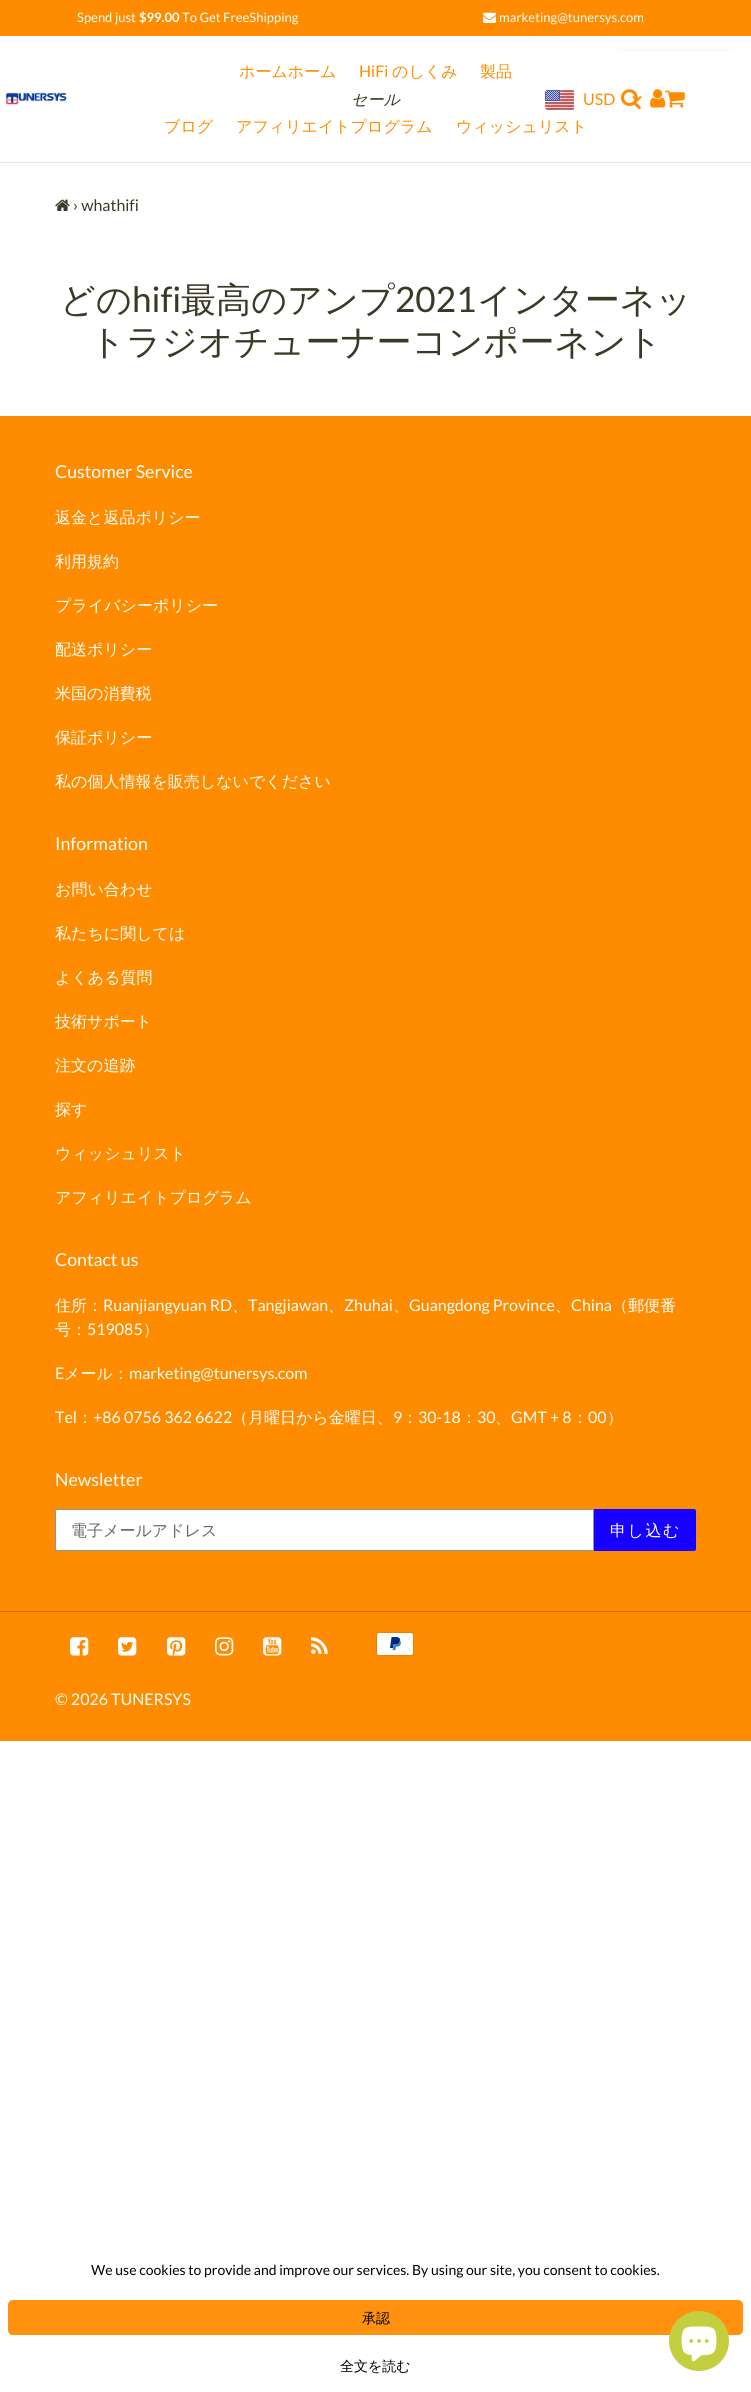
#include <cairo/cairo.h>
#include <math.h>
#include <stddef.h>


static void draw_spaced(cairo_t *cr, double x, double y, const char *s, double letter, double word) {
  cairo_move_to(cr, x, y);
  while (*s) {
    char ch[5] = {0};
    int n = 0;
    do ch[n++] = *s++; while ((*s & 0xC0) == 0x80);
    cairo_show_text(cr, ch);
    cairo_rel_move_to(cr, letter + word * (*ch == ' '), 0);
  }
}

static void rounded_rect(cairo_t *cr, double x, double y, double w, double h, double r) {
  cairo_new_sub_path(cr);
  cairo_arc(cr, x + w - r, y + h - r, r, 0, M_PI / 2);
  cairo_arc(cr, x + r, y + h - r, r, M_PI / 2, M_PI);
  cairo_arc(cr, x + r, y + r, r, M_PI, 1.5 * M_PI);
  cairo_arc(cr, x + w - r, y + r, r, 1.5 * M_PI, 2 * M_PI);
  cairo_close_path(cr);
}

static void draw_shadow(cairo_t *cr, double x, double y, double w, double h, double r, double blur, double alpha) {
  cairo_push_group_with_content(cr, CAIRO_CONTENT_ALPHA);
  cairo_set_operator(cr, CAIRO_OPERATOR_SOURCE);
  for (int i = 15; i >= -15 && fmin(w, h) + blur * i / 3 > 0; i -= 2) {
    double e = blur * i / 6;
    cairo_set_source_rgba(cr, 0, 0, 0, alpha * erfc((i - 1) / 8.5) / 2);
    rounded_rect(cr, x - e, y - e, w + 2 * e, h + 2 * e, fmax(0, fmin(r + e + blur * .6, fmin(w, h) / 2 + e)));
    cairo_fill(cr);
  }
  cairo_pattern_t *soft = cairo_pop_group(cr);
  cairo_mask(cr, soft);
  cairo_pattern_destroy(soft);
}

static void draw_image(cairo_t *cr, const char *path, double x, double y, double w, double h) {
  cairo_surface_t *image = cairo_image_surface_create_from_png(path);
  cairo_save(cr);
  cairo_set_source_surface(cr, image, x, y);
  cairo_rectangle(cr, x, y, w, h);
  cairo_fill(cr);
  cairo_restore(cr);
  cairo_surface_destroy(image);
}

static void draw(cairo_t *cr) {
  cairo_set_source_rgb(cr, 1, 1, 1);
  cairo_paint(cr);
  cairo_set_source_rgb(cr, 1, 140 / 255.0, 0);
  cairo_rectangle(cr, 0, 0, 751, 36);
  cairo_fill(cr);
  draw_image(cr, "images/1.png", 483, 12, 13, 11);
  cairo_set_source_rgb(cr, 232 / 255.0, 233 / 255.0, 235 / 255.0);
  cairo_rectangle(cr, 0, 162, 751, 1);
  cairo_fill(cr);
  cairo_set_source_rgb(cr, 0, 0, 0);
  draw_shadow(cr, 619, 55, 112, 41, 3, 5, 0.15);
  cairo_set_source_rgb(cr, 1, 1, 1);
  cairo_rectangle(cr, 612, 51, 126, 52);
  cairo_fill(cr);
  draw_image(cr, "images/2.png", 5, 92, 62, 13);
  draw_image(cr, "images/3.png", 544, 90, 30, 20);
  cairo_new_path(cr);
  cairo_move_to(cr, 633, 96.5);
  cairo_line_to(cr, 637, 100.5);
  cairo_line_to(cr, 641, 96.5);
  cairo_set_source_rgb(cr, 1, 140 / 255.0, 0);
  cairo_stroke(cr);
  draw_image(cr, "images/4.png", 621, 89, 20, 20);
  draw_image(cr, "images/5.png", 650, 89, 16, 19);
  draw_image(cr, "images/6.png", 665, 90, 20, 18);
  draw_image(cr, "images/7.png", 55, 199, 15, 12);
  cairo_rectangle(cr, 0, 416, 751, 1325);
  cairo_fill(cr);
  cairo_set_source_rgb(cr, 1, 1, 1);
  cairo_new_path(cr);
  cairo_move_to(cr, 57, 1509.5);
  cairo_line_to(cr, 593.5, 1509.5);
  cairo_line_to(cr, 593.5, 1550.5);
  cairo_line_to(cr, 57, 1550.5);
  cairo_curve_to(cr, 56, 1550.5, 55.5, 1550, 55.5, 1549);
  cairo_line_to(cr, 55.5, 1511);
  cairo_curve_to(cr, 55.5, 1510, 56, 1509.5, 57, 1509.5);
  cairo_close_path(cr);
  cairo_fill_preserve(cr);
  cairo_set_source_rgb(cr, 148 / 255.0, 148 / 255.0, 148 / 255.0);
  cairo_set_line_width(cr, 1);
  cairo_stroke(cr);
  cairo_set_source_rgb(cr, 23 / 255.0, 0, 1);
  cairo_new_path(cr);
  cairo_move_to(cr, 594, 1509);
  cairo_line_to(cr, 694, 1509);
  cairo_curve_to(cr, 695, 1509, 696, 1510, 696, 1511);
  cairo_line_to(cr, 696, 1549);
  cairo_curve_to(cr, 696, 1550, 695, 1551, 694, 1551);
  cairo_line_to(cr, 594, 1551);
  cairo_close_path(cr);
  cairo_fill(cr);
  cairo_set_source_rgb(cr, 204 / 255.0, 112 / 255.0, 0);
  cairo_rectangle(cr, 0, 1611, 751, 1);
  cairo_fill(cr);
  draw_image(cr, "images/8.png", 70, 1637, 19, 19);
  draw_image(cr, "images/9.png", 118, 1637, 19, 19);
  draw_image(cr, "images/10.png", 167, 1637, 19, 19);
  draw_image(cr, "images/11.png", 215, 1637, 19, 19);
  draw_image(cr, "images/12.png", 263, 1637, 19, 19);
  draw_image(cr, "images/13.png", 311, 1637, 17, 17);
  draw_image(cr, "images/14.png", 376, 1632, 38, 24);
  cairo_set_source_rgb(cr, 1, 145 / 255.0, 14 / 255.0);
  rounded_rect(cr, 8, 2300, 735, 35, 5);
  cairo_fill(cr);
  cairo_set_source_rgb(cr, 196 / 255.0, 207 / 255.0, 63 / 255.0);
  cairo_arc(cr, 699, 2341, 30, 0, 2 * M_PI);
  cairo_fill(cr);
  draw_image(cr, "images/15.png", 681, 2326, 36, 36);
  cairo_select_font_face(cr, "Lato", CAIRO_FONT_SLANT_NORMAL, CAIRO_FONT_WEIGHT_NORMAL);
  cairo_set_font_size(cr, 13);
  cairo_set_source_rgb(cr, 1, 1, 1);
  cairo_move_to(cr, 77, 22);
  cairo_show_text(cr, "Spend just");
  cairo_select_font_face(cr, "Lato", CAIRO_FONT_SLANT_NORMAL, CAIRO_FONT_WEIGHT_BOLD);
  cairo_move_to(cr, 139, 22);
  cairo_show_text(cr, "$99.00");
  cairo_select_font_face(cr, "Lato", CAIRO_FONT_SLANT_NORMAL, CAIRO_FONT_WEIGHT_NORMAL);
  cairo_move_to(cr, 182, 22);
  cairo_show_text(cr, "To Get FreeShipping");
  cairo_move_to(cr, 499, 22);
  cairo_show_text(cr, "marketing@tunersys.com");
  cairo_select_font_face(cr, "WenQuanYi Zen Hei Medium", CAIRO_FONT_SLANT_NORMAL, CAIRO_FONT_WEIGHT_NORMAL);
  cairo_set_font_size(cr, 16);
  cairo_set_source_rgb(cr, 1, 140 / 255.0, 0);
  cairo_move_to(cr, 239, 77);
  cairo_show_text(cr, "ホームホーム");
  cairo_select_font_face(cr, "Lato", CAIRO_FONT_SLANT_NORMAL, CAIRO_FONT_WEIGHT_NORMAL);
  cairo_move_to(cr, 359, 77);
  cairo_show_text(cr, "HiFi");
  cairo_select_font_face(cr, "WenQuanYi Zen Hei Medium", CAIRO_FONT_SLANT_NORMAL, CAIRO_FONT_WEIGHT_NORMAL);
  cairo_move_to(cr, 392, 77);
  cairo_show_text(cr, "のしくみ");
  cairo_move_to(cr, 480, 77);
  cairo_show_text(cr, "製品");
  cairo_select_font_face(cr, "WenQuanYi Zen Hei Medium", CAIRO_FONT_SLANT_ITALIC, CAIRO_FONT_WEIGHT_NORMAL);
  cairo_set_source_rgb(cr, 58 / 255.0, 57 / 255.0, 38 / 255.0);
  cairo_move_to(cr, 351, 105);
  cairo_show_text(cr, "セール");
  cairo_select_font_face(cr, "WenQuanYi Zen Hei Medium", CAIRO_FONT_SLANT_NORMAL, CAIRO_FONT_WEIGHT_NORMAL);
  cairo_set_source_rgb(cr, 1, 140 / 255.0, 0);
  cairo_move_to(cr, 164, 132);
  cairo_show_text(cr, "ブログ");
  cairo_move_to(cr, 236, 132);
  cairo_show_text(cr, "アフィリエイトプログラム");
  cairo_move_to(cr, 456, 132);
  cairo_show_text(cr, "ウィッシュリスト");
  cairo_select_font_face(cr, "Lato", CAIRO_FONT_SLANT_NORMAL, CAIRO_FONT_WEIGHT_NORMAL);
  cairo_move_to(cr, 583, 105);
  cairo_show_text(cr, "USD");
  cairo_set_source_rgb(cr, 58 / 255.0, 57 / 255.0, 38 / 255.0);
  cairo_move_to(cr, 73, 211);
  cairo_show_text(cr, "› whathifi");
  cairo_select_font_face(cr, "WenQuanYi Zen Hei Medium", CAIRO_FONT_SLANT_NORMAL, CAIRO_FONT_WEIGHT_NORMAL);
  cairo_set_font_size(cr, 35.1);
  cairo_move_to(cr, 60, 312);
  cairo_show_text(cr, "どの");
  cairo_select_font_face(cr, "Lato", CAIRO_FONT_SLANT_NORMAL, CAIRO_FONT_WEIGHT_NORMAL);
  cairo_move_to(cr, 132, 312);
  cairo_show_text(cr, "hifi");
  cairo_select_font_face(cr, "WenQuanYi Zen Hei Medium", CAIRO_FONT_SLANT_NORMAL, CAIRO_FONT_WEIGHT_NORMAL);
  cairo_move_to(cr, 181, 312);
  cairo_show_text(cr, "最高のアンプ");
  cairo_select_font_face(cr, "Lato", CAIRO_FONT_SLANT_NORMAL, CAIRO_FONT_WEIGHT_NORMAL);
  cairo_move_to(cr, 395, 312);
  cairo_show_text(cr, "2021");
  cairo_select_font_face(cr, "WenQuanYi Zen Hei Medium", CAIRO_FONT_SLANT_NORMAL, CAIRO_FONT_WEIGHT_NORMAL);
  cairo_move_to(cr, 477, 312);
  cairo_show_text(cr, "インターネッ");
  cairo_move_to(cr, 90, 354);
  cairo_show_text(cr, "トラジオチューナーコンポーネント");
  cairo_select_font_face(cr, "Lato", CAIRO_FONT_SLANT_NORMAL, CAIRO_FONT_WEIGHT_NORMAL);
  cairo_set_font_size(cr, 17.75);
  cairo_set_source_rgb(cr, 1, 1, 1);
  cairo_move_to(cr, 55, 478);
  cairo_show_text(cr, "Customer Service");
  cairo_select_font_face(cr, "WenQuanYi Zen Hei Medium", CAIRO_FONT_SLANT_NORMAL, CAIRO_FONT_WEIGHT_NORMAL);
  cairo_set_font_size(cr, 16);
  cairo_move_to(cr, 55, 523);
  cairo_show_text(cr, "返金と返品ポリシー");
  cairo_move_to(cr, 55, 567);
  cairo_show_text(cr, "利用規約");
  cairo_move_to(cr, 55, 611);
  cairo_show_text(cr, "プライバシーポリシー");
  cairo_move_to(cr, 55, 655);
  cairo_show_text(cr, "配送ポリシー");
  cairo_move_to(cr, 55, 699);
  cairo_show_text(cr, "米国の消費税");
  cairo_move_to(cr, 55, 743);
  cairo_show_text(cr, "保証ポリシー");
  cairo_move_to(cr, 55, 787);
  cairo_show_text(cr, "私の個人情報を販売しないでください");
  cairo_select_font_face(cr, "Lato", CAIRO_FONT_SLANT_NORMAL, CAIRO_FONT_WEIGHT_NORMAL);
  cairo_set_font_size(cr, 17.75);
  cairo_move_to(cr, 55, 850);
  cairo_show_text(cr, "Information");
  cairo_select_font_face(cr, "WenQuanYi Zen Hei Medium", CAIRO_FONT_SLANT_NORMAL, CAIRO_FONT_WEIGHT_NORMAL);
  cairo_set_font_size(cr, 16);
  cairo_move_to(cr, 55, 895);
  cairo_show_text(cr, "お問い合わせ");
  cairo_move_to(cr, 55, 939);
  cairo_show_text(cr, "私たちに関しては");
  cairo_move_to(cr, 55, 983);
  cairo_show_text(cr, "よくある質問");
  cairo_move_to(cr, 55, 1027);
  cairo_show_text(cr, "技術サポート");
  cairo_move_to(cr, 55, 1071);
  cairo_show_text(cr, "注文の追跡");
  cairo_move_to(cr, 55, 1115);
  cairo_show_text(cr, "探す");
  cairo_move_to(cr, 55, 1159);
  cairo_show_text(cr, "ウィッシュリスト");
  cairo_move_to(cr, 55, 1203);
  cairo_show_text(cr, "アフィリエイトプログラム");
  cairo_select_font_face(cr, "Lato", CAIRO_FONT_SLANT_NORMAL, CAIRO_FONT_WEIGHT_NORMAL);
  cairo_set_font_size(cr, 17.75);
  cairo_move_to(cr, 55, 1266);
  cairo_show_text(cr, "Contact us");
  cairo_select_font_face(cr, "WenQuanYi Zen Hei Medium", CAIRO_FONT_SLANT_NORMAL, CAIRO_FONT_WEIGHT_NORMAL);
  cairo_set_font_size(cr, 16);
  cairo_move_to(cr, 55, 1311);
  cairo_show_text(cr, "住所：");
  cairo_select_font_face(cr, "Lato", CAIRO_FONT_SLANT_NORMAL, CAIRO_FONT_WEIGHT_NORMAL);
  cairo_move_to(cr, 103, 1311);
  cairo_show_text(cr, "Ruanjiangyuan RD");
  cairo_select_font_face(cr, "WenQuanYi Zen Hei Medium", CAIRO_FONT_SLANT_NORMAL, CAIRO_FONT_WEIGHT_NORMAL);
  cairo_move_to(cr, 232, 1311);
  cairo_show_text(cr, "、");
  cairo_select_font_face(cr, "Lato", CAIRO_FONT_SLANT_NORMAL, CAIRO_FONT_WEIGHT_NORMAL);
  cairo_move_to(cr, 248, 1311);
  cairo_show_text(cr, "Tangjiawan");
  cairo_select_font_face(cr, "WenQuanYi Zen Hei Medium", CAIRO_FONT_SLANT_NORMAL, CAIRO_FONT_WEIGHT_NORMAL);
  cairo_move_to(cr, 328, 1311);
  cairo_show_text(cr, "、");
  cairo_select_font_face(cr, "Lato", CAIRO_FONT_SLANT_NORMAL, CAIRO_FONT_WEIGHT_NORMAL);
  cairo_move_to(cr, 344, 1311);
  cairo_show_text(cr, "Zhuhai");
  cairo_select_font_face(cr, "WenQuanYi Zen Hei Medium", CAIRO_FONT_SLANT_NORMAL, CAIRO_FONT_WEIGHT_NORMAL);
  cairo_move_to(cr, 393, 1311);
  cairo_show_text(cr, "、");
  cairo_select_font_face(cr, "Lato", CAIRO_FONT_SLANT_NORMAL, CAIRO_FONT_WEIGHT_NORMAL);
  cairo_move_to(cr, 409, 1311);
  cairo_show_text(cr, "Guangdong Province");
  cairo_select_font_face(cr, "WenQuanYi Zen Hei Medium", CAIRO_FONT_SLANT_NORMAL, CAIRO_FONT_WEIGHT_NORMAL);
  cairo_move_to(cr, 555, 1311);
  cairo_show_text(cr, "、");
  cairo_select_font_face(cr, "Lato", CAIRO_FONT_SLANT_NORMAL, CAIRO_FONT_WEIGHT_NORMAL);
  cairo_move_to(cr, 571, 1311);
  cairo_show_text(cr, "China");
  cairo_select_font_face(cr, "WenQuanYi Zen Hei Medium", CAIRO_FONT_SLANT_NORMAL, CAIRO_FONT_WEIGHT_NORMAL);
  cairo_move_to(cr, 612, 1311);
  cairo_show_text(cr, "（郵便番");
  cairo_move_to(cr, 55, 1335);
  cairo_show_text(cr, "号：");
  cairo_select_font_face(cr, "Lato", CAIRO_FONT_SLANT_NORMAL, CAIRO_FONT_WEIGHT_NORMAL);
  cairo_move_to(cr, 87, 1335);
  cairo_show_text(cr, "519085");
  cairo_select_font_face(cr, "WenQuanYi Zen Hei Medium", CAIRO_FONT_SLANT_NORMAL, CAIRO_FONT_WEIGHT_NORMAL);
  cairo_move_to(cr, 143, 1335);
  cairo_show_text(cr, "）");
  cairo_select_font_face(cr, "Lato", CAIRO_FONT_SLANT_NORMAL, CAIRO_FONT_WEIGHT_NORMAL);
  cairo_move_to(cr, 55, 1379);
  cairo_show_text(cr, "E");
  cairo_select_font_face(cr, "WenQuanYi Zen Hei Medium", CAIRO_FONT_SLANT_NORMAL, CAIRO_FONT_WEIGHT_NORMAL);
  cairo_move_to(cr, 64, 1379);
  cairo_show_text(cr, "メール：");
  cairo_select_font_face(cr, "Lato", CAIRO_FONT_SLANT_NORMAL, CAIRO_FONT_WEIGHT_NORMAL);
  cairo_move_to(cr, 129, 1379);
  cairo_show_text(cr, "marketing@tunersys.com");
  cairo_move_to(cr, 55, 1423);
  cairo_show_text(cr, "Tel");
  cairo_select_font_face(cr, "WenQuanYi Zen Hei Medium", CAIRO_FONT_SLANT_NORMAL, CAIRO_FONT_WEIGHT_NORMAL);
  cairo_move_to(cr, 77, 1423);
  cairo_show_text(cr, "：");
  cairo_select_font_face(cr, "Lato", CAIRO_FONT_SLANT_NORMAL, CAIRO_FONT_WEIGHT_NORMAL);
  cairo_move_to(cr, 93, 1423);
  cairo_show_text(cr, "+86 0756 362 6622");
  cairo_select_font_face(cr, "WenQuanYi Zen Hei Medium", CAIRO_FONT_SLANT_NORMAL, CAIRO_FONT_WEIGHT_NORMAL);
  cairo_move_to(cr, 232, 1423);
  cairo_show_text(cr, "（月曜日から金曜日、");
  cairo_select_font_face(cr, "Lato", CAIRO_FONT_SLANT_NORMAL, CAIRO_FONT_WEIGHT_NORMAL);
  cairo_move_to(cr, 393, 1423);
  cairo_show_text(cr, "9");
  cairo_select_font_face(cr, "WenQuanYi Zen Hei Medium", CAIRO_FONT_SLANT_NORMAL, CAIRO_FONT_WEIGHT_NORMAL);
  cairo_move_to(cr, 402, 1423);
  cairo_show_text(cr, "：");
  cairo_select_font_face(cr, "Lato", CAIRO_FONT_SLANT_NORMAL, CAIRO_FONT_WEIGHT_NORMAL);
  cairo_move_to(cr, 418, 1423);
  cairo_show_text(cr, "30-18");
  cairo_select_font_face(cr, "WenQuanYi Zen Hei Medium", CAIRO_FONT_SLANT_NORMAL, CAIRO_FONT_WEIGHT_NORMAL);
  cairo_move_to(cr, 461, 1423);
  cairo_show_text(cr, "：");
  cairo_select_font_face(cr, "Lato", CAIRO_FONT_SLANT_NORMAL, CAIRO_FONT_WEIGHT_NORMAL);
  cairo_move_to(cr, 477, 1423);
  cairo_show_text(cr, "30");
  cairo_select_font_face(cr, "WenQuanYi Zen Hei Medium", CAIRO_FONT_SLANT_NORMAL, CAIRO_FONT_WEIGHT_NORMAL);
  cairo_move_to(cr, 495, 1423);
  cairo_show_text(cr, "、");
  cairo_select_font_face(cr, "Lato", CAIRO_FONT_SLANT_NORMAL, CAIRO_FONT_WEIGHT_NORMAL);
  cairo_move_to(cr, 511, 1423);
  cairo_show_text(cr, "GMT + 8");
  cairo_select_font_face(cr, "WenQuanYi Zen Hei Medium", CAIRO_FONT_SLANT_NORMAL, CAIRO_FONT_WEIGHT_NORMAL);
  cairo_move_to(cr, 572, 1423);
  cairo_show_text(cr, "：");
  cairo_select_font_face(cr, "Lato", CAIRO_FONT_SLANT_NORMAL, CAIRO_FONT_WEIGHT_NORMAL);
  cairo_move_to(cr, 588, 1423);
  cairo_show_text(cr, "00");
  cairo_select_font_face(cr, "WenQuanYi Zen Hei Medium", CAIRO_FONT_SLANT_NORMAL, CAIRO_FONT_WEIGHT_NORMAL);
  cairo_move_to(cr, 607, 1423);
  cairo_show_text(cr, "）");
  cairo_select_font_face(cr, "Lato", CAIRO_FONT_SLANT_NORMAL, CAIRO_FONT_WEIGHT_NORMAL);
  cairo_set_font_size(cr, 17.75);
  cairo_move_to(cr, 55, 1486);
  cairo_show_text(cr, "Newsletter");
  cairo_select_font_face(cr, "WenQuanYi Zen Hei Medium", CAIRO_FONT_SLANT_NORMAL, CAIRO_FONT_WEIGHT_NORMAL);
  cairo_set_font_size(cr, 16);
  cairo_set_source_rgb(cr, 102 / 255.0, 102 / 255.0, 102 / 255.0);
  cairo_move_to(cr, 71, 1536);
  cairo_show_text(cr, "電子メールアドレス");
  cairo_set_source_rgb(cr, 1, 1, 1);
  draw_spaced(cr, 610, 1536, "申し込む", 1.5, 0);
  cairo_select_font_face(cr, "Lato", CAIRO_FONT_SLANT_NORMAL, CAIRO_FONT_WEIGHT_NORMAL);
  cairo_move_to(cr, 55, 1705);
  cairo_show_text(cr, "© 2026 TUNERSYS");
  cairo_set_font_size(cr, 14);
  cairo_set_source_rgb(cr, 0, 0, 0);
  cairo_move_to(cr, 91, 2275);
  cairo_show_text(cr, "We use cookies to provide and improve our services. By using our site, you consent to cookies.");
  cairo_select_font_face(cr, "WenQuanYi Zen Hei Medium", CAIRO_FONT_SLANT_NORMAL, CAIRO_FONT_WEIGHT_NORMAL);
  cairo_move_to(cr, 362, 2323);
  cairo_show_text(cr, "承認");
  cairo_move_to(cr, 340, 2371);
  cairo_show_text(cr, "全文を読む");
}

int main(void) {
  cairo_surface_t *surface = cairo_image_surface_create(CAIRO_FORMAT_RGB24, 751, 2392);
  cairo_t *cr = cairo_create(surface);
  cairo_font_options_t *options = cairo_font_options_create();
  cairo_font_options_set_hint_metrics(options, CAIRO_HINT_METRICS_OFF);
  cairo_font_options_set_hint_style(options, CAIRO_HINT_STYLE_NONE);
  cairo_set_font_options(cr, options);
  cairo_set_miter_limit(cr, 4);
  draw(cr);
  cairo_surface_write_to_png(surface, "out.png");
  cairo_font_options_destroy(options);
  cairo_destroy(cr);
  cairo_surface_destroy(surface);
  return 0;
}
